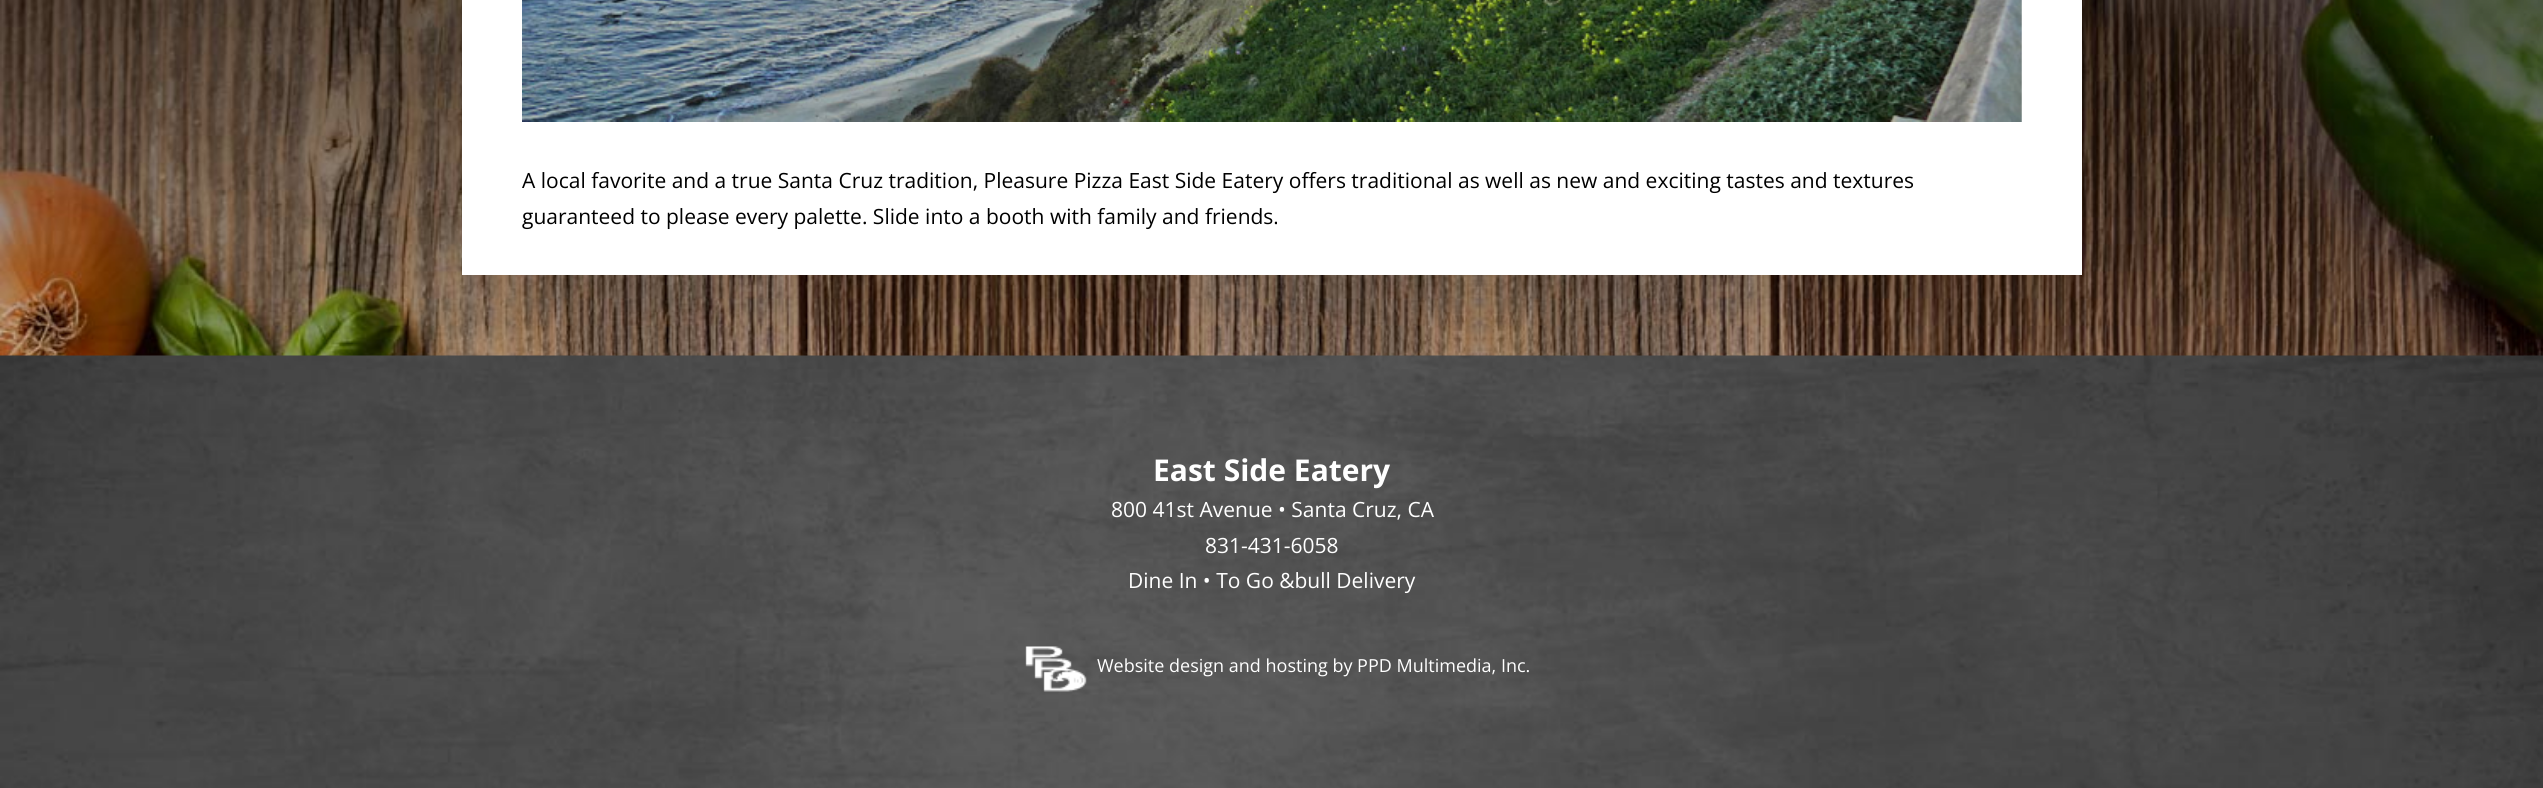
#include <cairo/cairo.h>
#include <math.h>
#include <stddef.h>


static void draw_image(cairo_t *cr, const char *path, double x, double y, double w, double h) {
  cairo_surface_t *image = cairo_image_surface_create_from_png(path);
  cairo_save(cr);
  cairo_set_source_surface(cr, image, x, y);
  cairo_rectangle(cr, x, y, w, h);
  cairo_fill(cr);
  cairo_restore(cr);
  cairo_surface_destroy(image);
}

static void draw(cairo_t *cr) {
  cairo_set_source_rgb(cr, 1, 1, 1);
  cairo_paint(cr);
  draw_image(cr, "images/1.png", 0, 0, 2543, 356);
  cairo_set_source_rgb(cr, 1, 1, 1);
  cairo_rectangle(cr, 462, 0, 1620, 275);
  cairo_fill(cr);
  draw_image(cr, "images/2.png", 522, 0, 1500, 122);
  draw_image(cr, "images/3.png", 0, 355, 2543, 433);
  draw_image(cr, "images/4.png", 1025, 646, 62, 46);
  cairo_select_font_face(cr, "Open Sans", CAIRO_FONT_SLANT_NORMAL, CAIRO_FONT_WEIGHT_NORMAL);
  cairo_set_font_size(cr, 21);
  cairo_set_source_rgb(cr, 0, 0, 0);
  cairo_move_to(cr, 522, 188);
  cairo_show_text(cr, "A local favorite and a true Santa Cruz tradition, Pleasure Pizza East Side Eatery offers traditional as well as new and exciting tastes and textures");
  cairo_move_to(cr, 522, 224);
  cairo_show_text(cr, "guaranteed to please every palette. Slide into a booth with family and friends.");
  cairo_select_font_face(cr, "Open Sans", CAIRO_FONT_SLANT_NORMAL, CAIRO_FONT_WEIGHT_BOLD);
  cairo_set_font_size(cr, 30);
  cairo_set_source_rgb(cr, 1, 1, 1);
  cairo_move_to(cr, 1153, 481);
  cairo_show_text(cr, "East Side Eatery");
  cairo_select_font_face(cr, "Open Sans", CAIRO_FONT_SLANT_NORMAL, CAIRO_FONT_WEIGHT_NORMAL);
  cairo_set_font_size(cr, 21);
  cairo_move_to(cr, 1111, 517);
  cairo_show_text(cr, "800 41st Avenue • Santa Cruz, CA");
  cairo_move_to(cr, 1205, 553);
  cairo_show_text(cr, "831-431-6058");
  cairo_move_to(cr, 1128, 588);
  cairo_show_text(cr, "Dine In • To Go &bull Delivery");
  cairo_set_font_size(cr, 18);
  cairo_move_to(cr, 1097, 672);
  cairo_show_text(cr, "Website design and hosting by PPD Multimedia, Inc.");
}

int main(void) {
  cairo_surface_t *surface = cairo_image_surface_create(CAIRO_FORMAT_RGB24, 2543, 788);
  cairo_t *cr = cairo_create(surface);
  cairo_font_options_t *options = cairo_font_options_create();
  cairo_font_options_set_hint_metrics(options, CAIRO_HINT_METRICS_OFF);
  cairo_font_options_set_hint_style(options, CAIRO_HINT_STYLE_NONE);
  cairo_set_font_options(cr, options);
  cairo_set_miter_limit(cr, 4);
  draw(cr);
  cairo_surface_write_to_png(surface, "out.png");
  cairo_font_options_destroy(options);
  cairo_destroy(cr);
  cairo_surface_destroy(surface);
  return 0;
}
